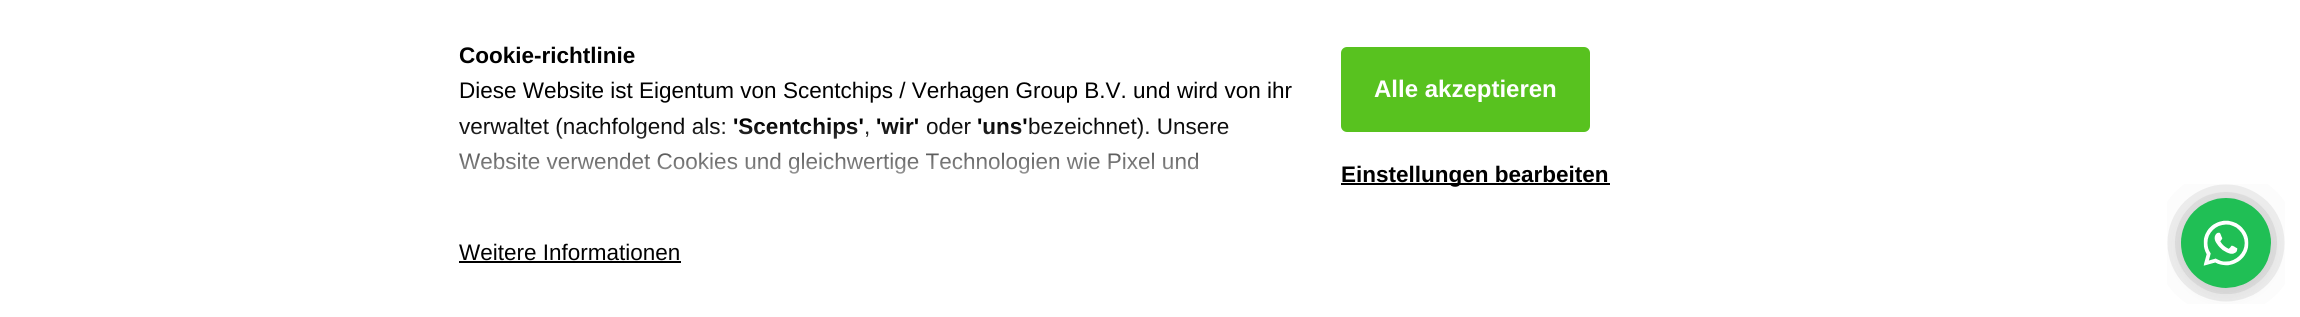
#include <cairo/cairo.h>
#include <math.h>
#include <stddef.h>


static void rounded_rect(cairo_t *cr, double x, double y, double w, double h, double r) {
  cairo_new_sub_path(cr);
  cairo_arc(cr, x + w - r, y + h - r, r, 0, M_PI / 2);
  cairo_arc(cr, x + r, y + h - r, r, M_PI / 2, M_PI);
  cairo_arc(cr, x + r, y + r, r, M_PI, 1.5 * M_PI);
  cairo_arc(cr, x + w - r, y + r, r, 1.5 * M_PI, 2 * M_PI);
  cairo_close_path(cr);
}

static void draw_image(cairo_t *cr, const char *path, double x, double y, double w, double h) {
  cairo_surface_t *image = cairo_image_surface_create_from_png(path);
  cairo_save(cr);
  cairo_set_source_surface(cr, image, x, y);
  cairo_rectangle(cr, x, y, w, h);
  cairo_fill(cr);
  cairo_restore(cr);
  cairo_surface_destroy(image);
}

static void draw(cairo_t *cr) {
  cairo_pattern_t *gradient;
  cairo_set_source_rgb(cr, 1, 1, 1);
  cairo_paint(cr);
  cairo_set_source_rgb(cr, 0, 0, 0);
  cairo_rectangle(cr, 459, 261, 222, 2);
  cairo_fill(cr);
  cairo_set_source_rgb(cr, 88 / 255.0, 194 / 255.0, 31 / 255.0);
  rounded_rect(cr, 1341, 47, 249, 85, 6);
  cairo_fill(cr);
  cairo_set_source_rgb(cr, 0, 0, 0);
  cairo_rectangle(cr, 1341, 183, 269, 2);
  cairo_fill(cr);
  draw_image(cr, "images/1.png", 2167, 184, 118, 120);
  cairo_select_font_face(cr, "Liberation Sans", CAIRO_FONT_SLANT_NORMAL, CAIRO_FONT_WEIGHT_BOLD);
  cairo_set_font_size(cr, 22.5);
  cairo_move_to(cr, 459, 63);
  cairo_show_text(cr, "Cookie-richtlinie");
  cairo_select_font_face(cr, "Liberation Sans", CAIRO_FONT_SLANT_NORMAL, CAIRO_FONT_WEIGHT_NORMAL);
  cairo_move_to(cr, 459, 98);
  cairo_show_text(cr, "Diese Website ist Eigentum von Scentchips / Verhagen Group B.V. und wird von ihr");
  cairo_move_to(cr, 459, 134);
  cairo_show_text(cr, "verwaltet (nachfolgend als:");
  cairo_select_font_face(cr, "Liberation Sans", CAIRO_FONT_SLANT_NORMAL, CAIRO_FONT_WEIGHT_BOLD);
  cairo_move_to(cr, 733, 134);
  cairo_show_text(cr, "'Scentchips'");
  cairo_select_font_face(cr, "Liberation Sans", CAIRO_FONT_SLANT_NORMAL, CAIRO_FONT_WEIGHT_NORMAL);
  cairo_move_to(cr, 864, 134);
  cairo_show_text(cr, ",");
  cairo_select_font_face(cr, "Liberation Sans", CAIRO_FONT_SLANT_NORMAL, CAIRO_FONT_WEIGHT_BOLD);
  cairo_move_to(cr, 876, 134);
  cairo_show_text(cr, "'wir'");
  cairo_select_font_face(cr, "Liberation Sans", CAIRO_FONT_SLANT_NORMAL, CAIRO_FONT_WEIGHT_NORMAL);
  cairo_move_to(cr, 926, 134);
  cairo_show_text(cr, "oder");
  cairo_select_font_face(cr, "Liberation Sans", CAIRO_FONT_SLANT_NORMAL, CAIRO_FONT_WEIGHT_BOLD);
  cairo_move_to(cr, 977, 134);
  cairo_show_text(cr, "'uns'");
  cairo_select_font_face(cr, "Liberation Sans", CAIRO_FONT_SLANT_NORMAL, CAIRO_FONT_WEIGHT_NORMAL);
  cairo_move_to(cr, 1028, 134);
  cairo_show_text(cr, "bezeichnet). Unsere");
  cairo_move_to(cr, 459, 169);
  cairo_show_text(cr, "Website verwendet Cookies und gleichwertige Technologien wie Pixel und");
  gradient = cairo_pattern_create_linear(876, 121, 876, 212);
  cairo_pattern_add_color_stop_rgba(gradient, 0, 1, 1, 1, 0);
  cairo_pattern_add_color_stop_rgba(gradient, 1, 1, 1, 1, 1);
  cairo_set_source(cr, gradient);
  cairo_pattern_destroy(gradient);
  cairo_rectangle(cr, 459, 123, 769, 51);
  cairo_fill(cr);
  cairo_set_source_rgb(cr, 0, 0, 0);
  cairo_move_to(cr, 459, 260);
  cairo_show_text(cr, "Weitere Informationen");
  cairo_select_font_face(cr, "Liberation Sans", CAIRO_FONT_SLANT_NORMAL, CAIRO_FONT_WEIGHT_BOLD);
  cairo_set_font_size(cr, 24);
  cairo_set_source_rgb(cr, 1, 1, 1);
  cairo_move_to(cr, 1374, 97);
  cairo_show_text(cr, "Alle akzeptieren");
  cairo_set_font_size(cr, 22.5);
  cairo_set_source_rgb(cr, 0, 0, 0);
  cairo_move_to(cr, 1341, 182);
  cairo_show_text(cr, "Einstellungen bearbeiten");
}

int main(void) {
  cairo_surface_t *surface = cairo_image_surface_create(CAIRO_FORMAT_RGB24, 2300, 317);
  cairo_t *cr = cairo_create(surface);
  cairo_font_options_t *options = cairo_font_options_create();
  cairo_font_options_set_hint_metrics(options, CAIRO_HINT_METRICS_OFF);
  cairo_font_options_set_hint_style(options, CAIRO_HINT_STYLE_NONE);
  cairo_set_font_options(cr, options);
  cairo_set_miter_limit(cr, 4);
  draw(cr);
  cairo_surface_write_to_png(surface, "out.png");
  cairo_font_options_destroy(options);
  cairo_destroy(cr);
  cairo_surface_destroy(surface);
  return 0;
}
